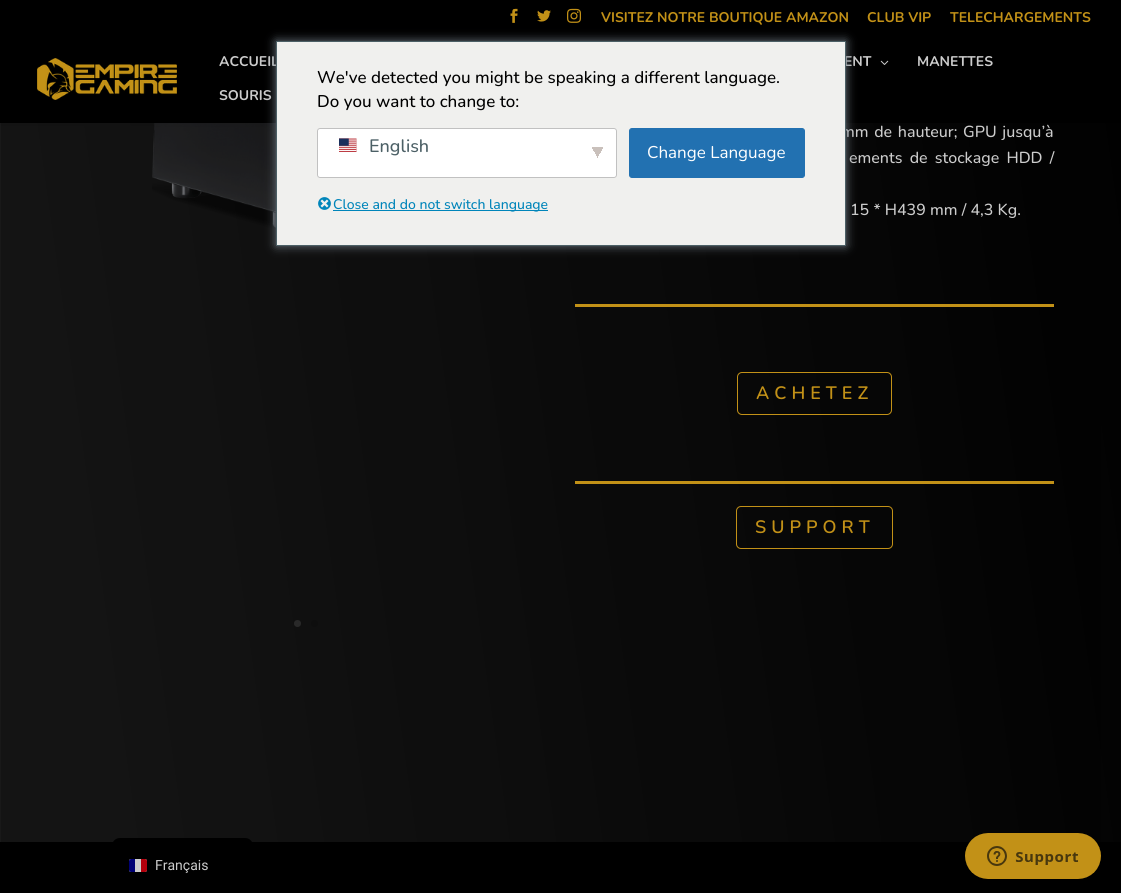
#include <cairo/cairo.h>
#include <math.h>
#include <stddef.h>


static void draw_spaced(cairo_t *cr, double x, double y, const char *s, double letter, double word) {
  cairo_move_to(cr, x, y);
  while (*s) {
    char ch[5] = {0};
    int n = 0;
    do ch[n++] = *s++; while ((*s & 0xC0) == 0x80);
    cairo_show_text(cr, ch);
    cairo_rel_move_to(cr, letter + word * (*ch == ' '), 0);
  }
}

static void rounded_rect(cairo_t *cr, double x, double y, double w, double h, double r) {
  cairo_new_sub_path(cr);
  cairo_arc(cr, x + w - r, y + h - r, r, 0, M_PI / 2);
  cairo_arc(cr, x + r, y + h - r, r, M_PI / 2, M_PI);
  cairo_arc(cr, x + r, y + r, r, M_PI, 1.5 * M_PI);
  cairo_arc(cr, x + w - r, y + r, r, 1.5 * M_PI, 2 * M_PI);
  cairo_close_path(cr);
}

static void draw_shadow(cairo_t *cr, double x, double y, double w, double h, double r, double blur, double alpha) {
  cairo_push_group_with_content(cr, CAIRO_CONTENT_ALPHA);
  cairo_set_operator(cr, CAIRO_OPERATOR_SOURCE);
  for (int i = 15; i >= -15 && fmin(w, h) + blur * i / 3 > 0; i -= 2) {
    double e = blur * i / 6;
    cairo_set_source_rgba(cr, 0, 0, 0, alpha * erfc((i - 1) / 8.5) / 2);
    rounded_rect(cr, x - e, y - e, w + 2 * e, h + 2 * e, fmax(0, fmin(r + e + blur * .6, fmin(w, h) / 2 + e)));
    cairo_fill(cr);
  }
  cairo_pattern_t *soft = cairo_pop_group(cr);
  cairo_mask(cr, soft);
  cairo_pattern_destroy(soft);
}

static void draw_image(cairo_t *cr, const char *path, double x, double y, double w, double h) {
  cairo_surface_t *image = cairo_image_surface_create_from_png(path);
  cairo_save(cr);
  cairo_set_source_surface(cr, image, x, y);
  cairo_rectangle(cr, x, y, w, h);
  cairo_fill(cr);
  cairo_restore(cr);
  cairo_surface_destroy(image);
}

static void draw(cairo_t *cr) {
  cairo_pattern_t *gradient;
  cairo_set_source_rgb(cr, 1, 1, 1);
  cairo_paint(cr);
  gradient = cairo_pattern_create_linear(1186, 201, -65, 377);
  cairo_pattern_add_color_stop_rgba(gradient, 0, 0, 0, 0, 1);
  cairo_pattern_add_color_stop_rgba(gradient, 0.91, 25 / 255.0, 25 / 255.0, 25 / 255.0, 1);
  cairo_set_source(cr, gradient);
  cairo_pattern_destroy(gradient);
  cairo_rectangle(cr, 0, 123, 1121, 719);
  cairo_fill(cr);
  draw_image(cr, "images/6.png", 152, 123, 124, 107);
  cairo_set_source_rgb(cr, 0, 0, 0);
  draw_shadow(cr, 0, 35, 1121, 88, 0, 3.5, 0.1);
  cairo_set_source_rgb(cr, 0, 0, 0);
  cairo_rectangle(cr, 0, 0, 1121, 123);
  cairo_fill(cr);
  draw_image(cr, "images/1.png", 510, 8, 8, 15);
  draw_image(cr, "images/2.png", 537, 10, 14, 12);
  draw_image(cr, "images/3.png", 567, 8, 14, 15);
  draw_image(cr, "images/4.png", 37, 58, 140, 42);
  draw_image(cr, "images/5.png", 880, 60, 9, 5);
  cairo_set_source_rgb(cr, 51 / 255.0, 51 / 255.0, 51 / 255.0);
  cairo_arc(cr, 297.5, 623.5, 3.5, 0, 2 * M_PI);
  cairo_fill(cr);
  cairo_set_source_rgb(cr, 17 / 255.0, 17 / 255.0, 17 / 255.0);
  cairo_arc(cr, 314.5, 623.5, 3.5, 0, 2 * M_PI);
  cairo_fill(cr);
  cairo_set_source_rgb(cr, 243 / 255.0, 181 / 255.0, 29 / 255.0);
  cairo_rectangle(cr, 575, 304, 479, 3);
  cairo_fill(cr);
  rounded_rect(cr, 737.5, 372.5, 154, 42, 4.5);
  cairo_set_line_width(cr, 1);
  cairo_stroke(cr);
  cairo_rectangle(cr, 575, 481, 479, 3);
  cairo_fill(cr);
  rounded_rect(cr, 736.5, 506.5, 156, 42, 4.5);
  cairo_stroke(cr);
  cairo_set_source_rgb(cr, 0, 0, 0);
  cairo_rectangle(cr, 0, 842, 1121, 51);
  cairo_fill(cr);
  cairo_new_path(cr);
  cairo_move_to(cr, 120, 838);
  cairo_line_to(cr, 245, 838);
  cairo_curve_to(cr, 249.5, 838, 253, 841.5, 253, 846);
  cairo_line_to(cr, 253, 893);
  cairo_line_to(cr, 112, 893);
  cairo_line_to(cr, 112, 846);
  cairo_curve_to(cr, 112, 841.5, 115.5, 838, 120, 838);
  cairo_close_path(cr);
  cairo_fill(cr);
  cairo_set_source_rgb(cr, 1, 1, 1);
  rounded_rect(cr, 129, 859, 18, 13, 2);
  cairo_fill(cr);
  cairo_set_source_rgb(cr, 0, 0, 145 / 255.0);
  cairo_new_path(cr);
  cairo_move_to(cr, 131, 859);
  cairo_line_to(cr, 135, 859);
  cairo_line_to(cr, 135, 872);
  cairo_line_to(cr, 131, 872);
  cairo_curve_to(cr, 130, 872, 129, 871, 129, 870);
  cairo_line_to(cr, 129, 861);
  cairo_curve_to(cr, 129, 860, 130, 859, 131, 859);
  cairo_close_path(cr);
  cairo_fill(cr);
  cairo_set_source_rgb(cr, 225 / 255.0, 0, 15 / 255.0);
  cairo_new_path(cr);
  cairo_move_to(cr, 141, 859);
  cairo_line_to(cr, 145, 859);
  cairo_curve_to(cr, 146, 859, 147, 860, 147, 861);
  cairo_line_to(cr, 147, 870);
  cairo_curve_to(cr, 147, 871, 146, 872, 145, 872);
  cairo_line_to(cr, 141, 872);
  cairo_close_path(cr);
  cairo_fill(cr);
  draw_image(cr, "images/9.png", 965, 833, 136, 46);
  cairo_select_font_face(cr, "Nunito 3 ExtraLight", CAIRO_FONT_SLANT_NORMAL, CAIRO_FONT_WEIGHT_NORMAL);
  cairo_set_font_size(cr, 14);
  cairo_set_source_rgb(cr, 243 / 255.0, 181 / 255.0, 29 / 255.0);
  cairo_move_to(cr, 601, 22);
  cairo_show_text(cr, "VISITEZ NOTRE BOUTIQUE AMAZON");
  cairo_move_to(cr, 867, 22);
  cairo_show_text(cr, "CLUB VIP");
  cairo_move_to(cr, 950, 22);
  cairo_show_text(cr, "TELECHARGEMENTS");
  cairo_set_source_rgb(cr, 1, 1, 1);
  cairo_move_to(cr, 219, 66);
  cairo_show_text(cr, "ACCUEIL");
  cairo_move_to(cr, 844, 66);
  cairo_show_text(cr, "ENT");
  cairo_move_to(cr, 917, 66);
  cairo_show_text(cr, "MANETTES");
  cairo_move_to(cr, 219, 100);
  cairo_show_text(cr, "SOURIS");
  cairo_select_font_face(cr, "Nunito ExtraLight", CAIRO_FONT_SLANT_NORMAL, CAIRO_FONT_WEIGHT_NORMAL);
  cairo_set_font_size(cr, 16);
  draw_spaced(cr, 841, 137, "mm de hauteur; GPU jusqu’à", 0, 1.5);
  draw_spaced(cr, 849, 163, "ements de stockage HDD /", 0, 3);
  cairo_move_to(cr, 850, 215);
  cairo_show_text(cr, "15 * H439 mm / 4,3 Kg.");
  cairo_select_font_face(cr, "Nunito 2 ExtraLight", CAIRO_FONT_SLANT_NORMAL, CAIRO_FONT_WEIGHT_NORMAL);
  cairo_set_font_size(cr, 18);
  cairo_set_source_rgb(cr, 243 / 255.0, 181 / 255.0, 29 / 255.0);
  draw_spaced(cr, 756, 399, "ACHETEZ", 5, 0);
  draw_spaced(cr, 755, 533, "SUPPORT", 5, 0);
  cairo_select_font_face(cr, "Roboto", CAIRO_FONT_SLANT_NORMAL, CAIRO_FONT_WEIGHT_NORMAL);
  cairo_set_font_size(cr, 14);
  cairo_set_source_rgb(cr, 1, 1, 1);
  cairo_move_to(cr, 155, 870);
  cairo_show_text(cr, "Français");
  cairo_set_source_rgba(cr, 0, 0, 0, 0.2);
  cairo_rectangle(cr, 1, 8, 1100, 871);
  cairo_fill(cr);
  cairo_set_source_rgb(cr, 108 / 255.0, 119 / 255.0, 129 / 255.0);
  draw_shadow(cr, 276, 41, 570, 205, 0, 5, 1);
  cairo_set_source_rgb(cr, 240 / 255.0, 240 / 255.0, 238 / 255.0);
  cairo_rectangle(cr, 276.5, 41.5, 569, 204);
  cairo_fill_preserve(cr);
  cairo_set_source_rgb(cr, 76 / 255.0, 96 / 255.0, 102 / 255.0);
  cairo_stroke(cr);
  draw_image(cr, "images/8.png", 318, 197, 13, 13);
  cairo_set_source_rgb(cr, 1, 1, 1);
  rounded_rect(cr, 317, 128, 300, 50, 3);
  cairo_fill(cr);
  gradient = cairo_pattern_create_linear(590, 155, 599, 150);
  cairo_pattern_add_color_stop_rgba(gradient, 0.5, 1, 1, 1, 1);
  cairo_pattern_add_color_stop_rgba(gradient, 0.5, 201 / 255.0, 192 / 255.0, 187 / 255.0, 1);
  cairo_set_source(cr, gradient);
  cairo_pattern_destroy(gradient);
  cairo_rectangle(cr, 592, 147, 6, 12);
  cairo_fill(cr);
  gradient = cairo_pattern_create_linear(596, 150, 605, 155);
  cairo_pattern_add_color_stop_rgba(gradient, 0.5, 201 / 255.0, 192 / 255.0, 187 / 255.0, 1);
  cairo_pattern_add_color_stop_rgba(gradient, 0.5, 1, 1, 1, 1);
  cairo_set_source(cr, gradient);
  cairo_pattern_destroy(gradient);
  cairo_rectangle(cr, 598, 147, 5, 12);
  cairo_fill(cr);
  rounded_rect(cr, 317.5, 128.5, 299, 49, 2.5);
  cairo_set_source_rgb(cr, 193 / 255.0, 193 / 255.0, 193 / 255.0);
  cairo_stroke(cr);
  cairo_select_font_face(cr, "Nunito ExtraLight", CAIRO_FONT_SLANT_NORMAL, CAIRO_FONT_WEIGHT_NORMAL);
  cairo_set_font_size(cr, 18);
  cairo_set_source_rgb(cr, 76 / 255.0, 96 / 255.0, 102 / 255.0);
  cairo_move_to(cr, 369, 152);
  cairo_show_text(cr, "English");
  draw_image(cr, "images/7.png", 339, 138, 18, 14);
  cairo_set_source_rgb(cr, 0, 133 / 255.0, 186 / 255.0);
  cairo_rectangle(cr, 333, 210, 215, 1);
  cairo_fill(cr);
  cairo_set_font_size(cr, 14);
  cairo_move_to(cr, 333, 209);
  cairo_show_text(cr, "Close and do not switch language");
  cairo_set_source_rgb(cr, 34 / 255.0, 113 / 255.0, 177 / 255.0);
  rounded_rect(cr, 629.5, 128.5, 175, 49, 2.5);
  cairo_fill_preserve(cr);
  cairo_stroke(cr);
  cairo_select_font_face(cr, "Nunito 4 ExtraLight", CAIRO_FONT_SLANT_NORMAL, CAIRO_FONT_WEIGHT_NORMAL);
  cairo_set_font_size(cr, 17);
  cairo_set_source_rgb(cr, 1, 1, 1);
  cairo_move_to(cr, 647, 158);
  cairo_show_text(cr, "Change Language");
  cairo_select_font_face(cr, "Nunito ExtraLight", CAIRO_FONT_SLANT_NORMAL, CAIRO_FONT_WEIGHT_NORMAL);
  cairo_set_source_rgb(cr, 0, 0, 0);
  cairo_move_to(cr, 317, 107);
  cairo_show_text(cr, "Do you want to change to:");
  cairo_move_to(cr, 317, 83);
  cairo_show_text(cr, "We've detected you might be speaking a different language.");
}

int main(void) {
  cairo_surface_t *surface = cairo_image_surface_create(CAIRO_FORMAT_RGB24, 1121, 893);
  cairo_t *cr = cairo_create(surface);
  cairo_font_options_t *options = cairo_font_options_create();
  cairo_font_options_set_hint_metrics(options, CAIRO_HINT_METRICS_OFF);
  cairo_font_options_set_hint_style(options, CAIRO_HINT_STYLE_NONE);
  cairo_set_font_options(cr, options);
  cairo_set_miter_limit(cr, 4);
  draw(cr);
  cairo_surface_write_to_png(surface, "out.png");
  cairo_font_options_destroy(options);
  cairo_destroy(cr);
  cairo_surface_destroy(surface);
  return 0;
}
